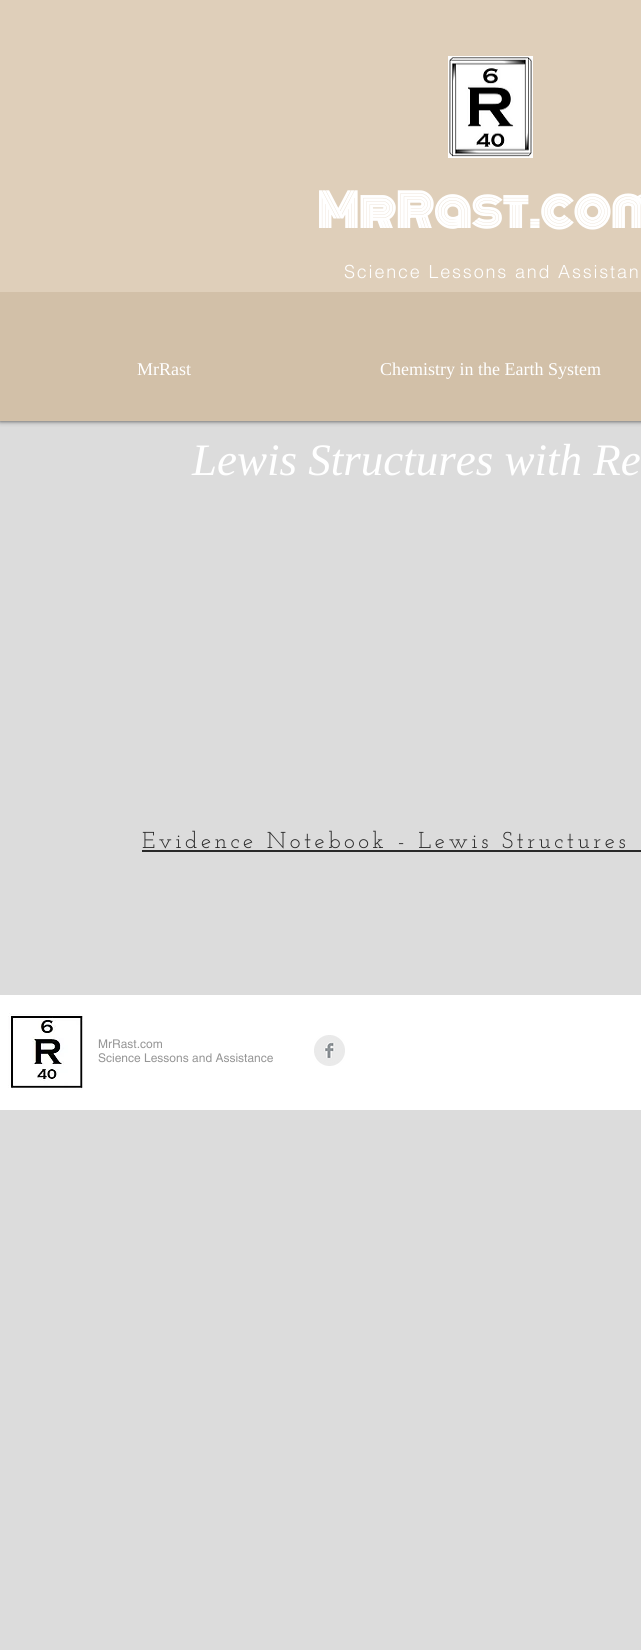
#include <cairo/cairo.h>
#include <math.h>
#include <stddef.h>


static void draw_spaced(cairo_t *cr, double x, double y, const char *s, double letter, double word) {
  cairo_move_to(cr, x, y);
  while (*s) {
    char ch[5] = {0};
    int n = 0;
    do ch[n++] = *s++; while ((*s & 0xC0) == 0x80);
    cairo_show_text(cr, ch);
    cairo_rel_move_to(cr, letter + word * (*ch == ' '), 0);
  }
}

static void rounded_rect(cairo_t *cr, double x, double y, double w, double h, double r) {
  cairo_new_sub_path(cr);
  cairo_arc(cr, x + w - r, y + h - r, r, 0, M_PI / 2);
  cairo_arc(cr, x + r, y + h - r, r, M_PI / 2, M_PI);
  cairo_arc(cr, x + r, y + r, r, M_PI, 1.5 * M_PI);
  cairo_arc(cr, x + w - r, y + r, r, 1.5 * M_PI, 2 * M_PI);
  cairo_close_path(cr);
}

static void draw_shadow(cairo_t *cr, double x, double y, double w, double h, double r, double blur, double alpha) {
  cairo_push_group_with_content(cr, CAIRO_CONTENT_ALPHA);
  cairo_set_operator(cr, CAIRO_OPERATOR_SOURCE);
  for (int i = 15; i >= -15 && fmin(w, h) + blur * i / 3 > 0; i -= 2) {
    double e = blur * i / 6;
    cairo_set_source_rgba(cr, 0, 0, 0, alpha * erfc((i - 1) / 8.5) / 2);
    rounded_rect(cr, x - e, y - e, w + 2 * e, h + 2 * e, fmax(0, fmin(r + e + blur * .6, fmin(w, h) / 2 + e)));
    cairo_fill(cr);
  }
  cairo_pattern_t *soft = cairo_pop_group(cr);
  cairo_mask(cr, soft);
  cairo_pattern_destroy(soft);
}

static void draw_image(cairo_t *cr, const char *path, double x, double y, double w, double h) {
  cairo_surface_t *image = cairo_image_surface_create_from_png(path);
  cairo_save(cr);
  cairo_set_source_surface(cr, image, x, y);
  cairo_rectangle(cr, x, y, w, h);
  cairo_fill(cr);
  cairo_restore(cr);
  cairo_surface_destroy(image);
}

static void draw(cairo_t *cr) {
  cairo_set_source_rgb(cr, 220 / 255.0, 220 / 255.0, 220 / 255.0);
  cairo_paint(cr);
  cairo_set_source_rgb(cr, 0, 0, 0);
  draw_shadow(cr, 0, 0, 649, 421, 0, 2.5, 0.7);
  cairo_set_source_rgb(cr, 210 / 255.0, 192 / 255.0, 168 / 255.0);
  cairo_rectangle(cr, 0, 292, 641, 129);
  cairo_fill(cr);
  cairo_set_source_rgb(cr, 223 / 255.0, 207 / 255.0, 186 / 255.0);
  cairo_rectangle(cr, 0, 0, 641, 292);
  cairo_fill(cr);
  draw_image(cr, "images/1.png", 448, 56, 85, 102);
  cairo_set_source_rgb(cr, 41 / 255.0, 41 / 255.0, 41 / 255.0);
  cairo_rectangle(cr, 142, 850, 499, 2);
  cairo_fill(cr);
  cairo_set_source_rgb(cr, 1, 1, 1);
  cairo_rectangle(cr, 0, 995, 641, 115);
  cairo_fill(cr);
  draw_image(cr, "images/2.png", 8, 1013, 75, 77);
  draw_image(cr, "images/3.png", 314, 1035, 31, 31);
  cairo_select_font_face(cr, "Monoton", CAIRO_FONT_SLANT_NORMAL, CAIRO_FONT_WEIGHT_BOLD);
  cairo_set_font_size(cr, 45);
  cairo_move_to(cr, 317, 228);
  cairo_show_text(cr, "MrRast.com");
  cairo_select_font_face(cr, "helvetica Light", CAIRO_FONT_SLANT_NORMAL, CAIRO_FONT_WEIGHT_NORMAL);
  cairo_set_font_size(cr, 18);
  draw_spaced(cr, 344, 278, "Science Lessons and Assistan", 1.8, 0);
  cairo_select_font_face(cr, "Liberation Serif", CAIRO_FONT_SLANT_NORMAL, CAIRO_FONT_WEIGHT_NORMAL);
  cairo_move_to(cr, 137, 375);
  cairo_show_text(cr, "MrRast");
  cairo_move_to(cr, 380, 375);
  cairo_show_text(cr, "Chemistry in the Earth System");
  cairo_select_font_face(cr, "Liberation Serif", CAIRO_FONT_SLANT_ITALIC, CAIRO_FONT_WEIGHT_NORMAL);
  cairo_set_font_size(cr, 45);
  cairo_move_to(cr, 192, 475);
  cairo_show_text(cr, "Lewis Structures with Re");
  cairo_select_font_face(cr, "Josefin Slab", CAIRO_FONT_SLANT_NORMAL, CAIRO_FONT_WEIGHT_NORMAL);
  cairo_set_font_size(cr, 23);
  cairo_set_source_rgb(cr, 41 / 255.0, 41 / 255.0, 41 / 255.0);
  draw_spaced(cr, 142, 848, "Evidence Notebook - Lewis Structures", 3.45, 0);
  cairo_select_font_face(cr, "helvetica", CAIRO_FONT_SLANT_NORMAL, CAIRO_FONT_WEIGHT_NORMAL);
  cairo_set_font_size(cr, 12);
  cairo_set_source_rgb(cr, 150 / 255.0, 150 / 255.0, 150 / 255.0);
  cairo_move_to(cr, 98, 1048);
  cairo_show_text(cr, "MrRast.com");
  cairo_move_to(cr, 98, 1062);
  cairo_show_text(cr, "Science Lessons and Assistance");
}

int main(void) {
  cairo_surface_t *surface = cairo_image_surface_create(CAIRO_FORMAT_RGB24, 641, 1650);
  cairo_t *cr = cairo_create(surface);
  cairo_font_options_t *options = cairo_font_options_create();
  cairo_font_options_set_hint_metrics(options, CAIRO_HINT_METRICS_OFF);
  cairo_font_options_set_hint_style(options, CAIRO_HINT_STYLE_NONE);
  cairo_set_font_options(cr, options);
  cairo_set_miter_limit(cr, 4);
  draw(cr);
  cairo_surface_write_to_png(surface, "out.png");
  cairo_font_options_destroy(options);
  cairo_destroy(cr);
  cairo_surface_destroy(surface);
  return 0;
}
